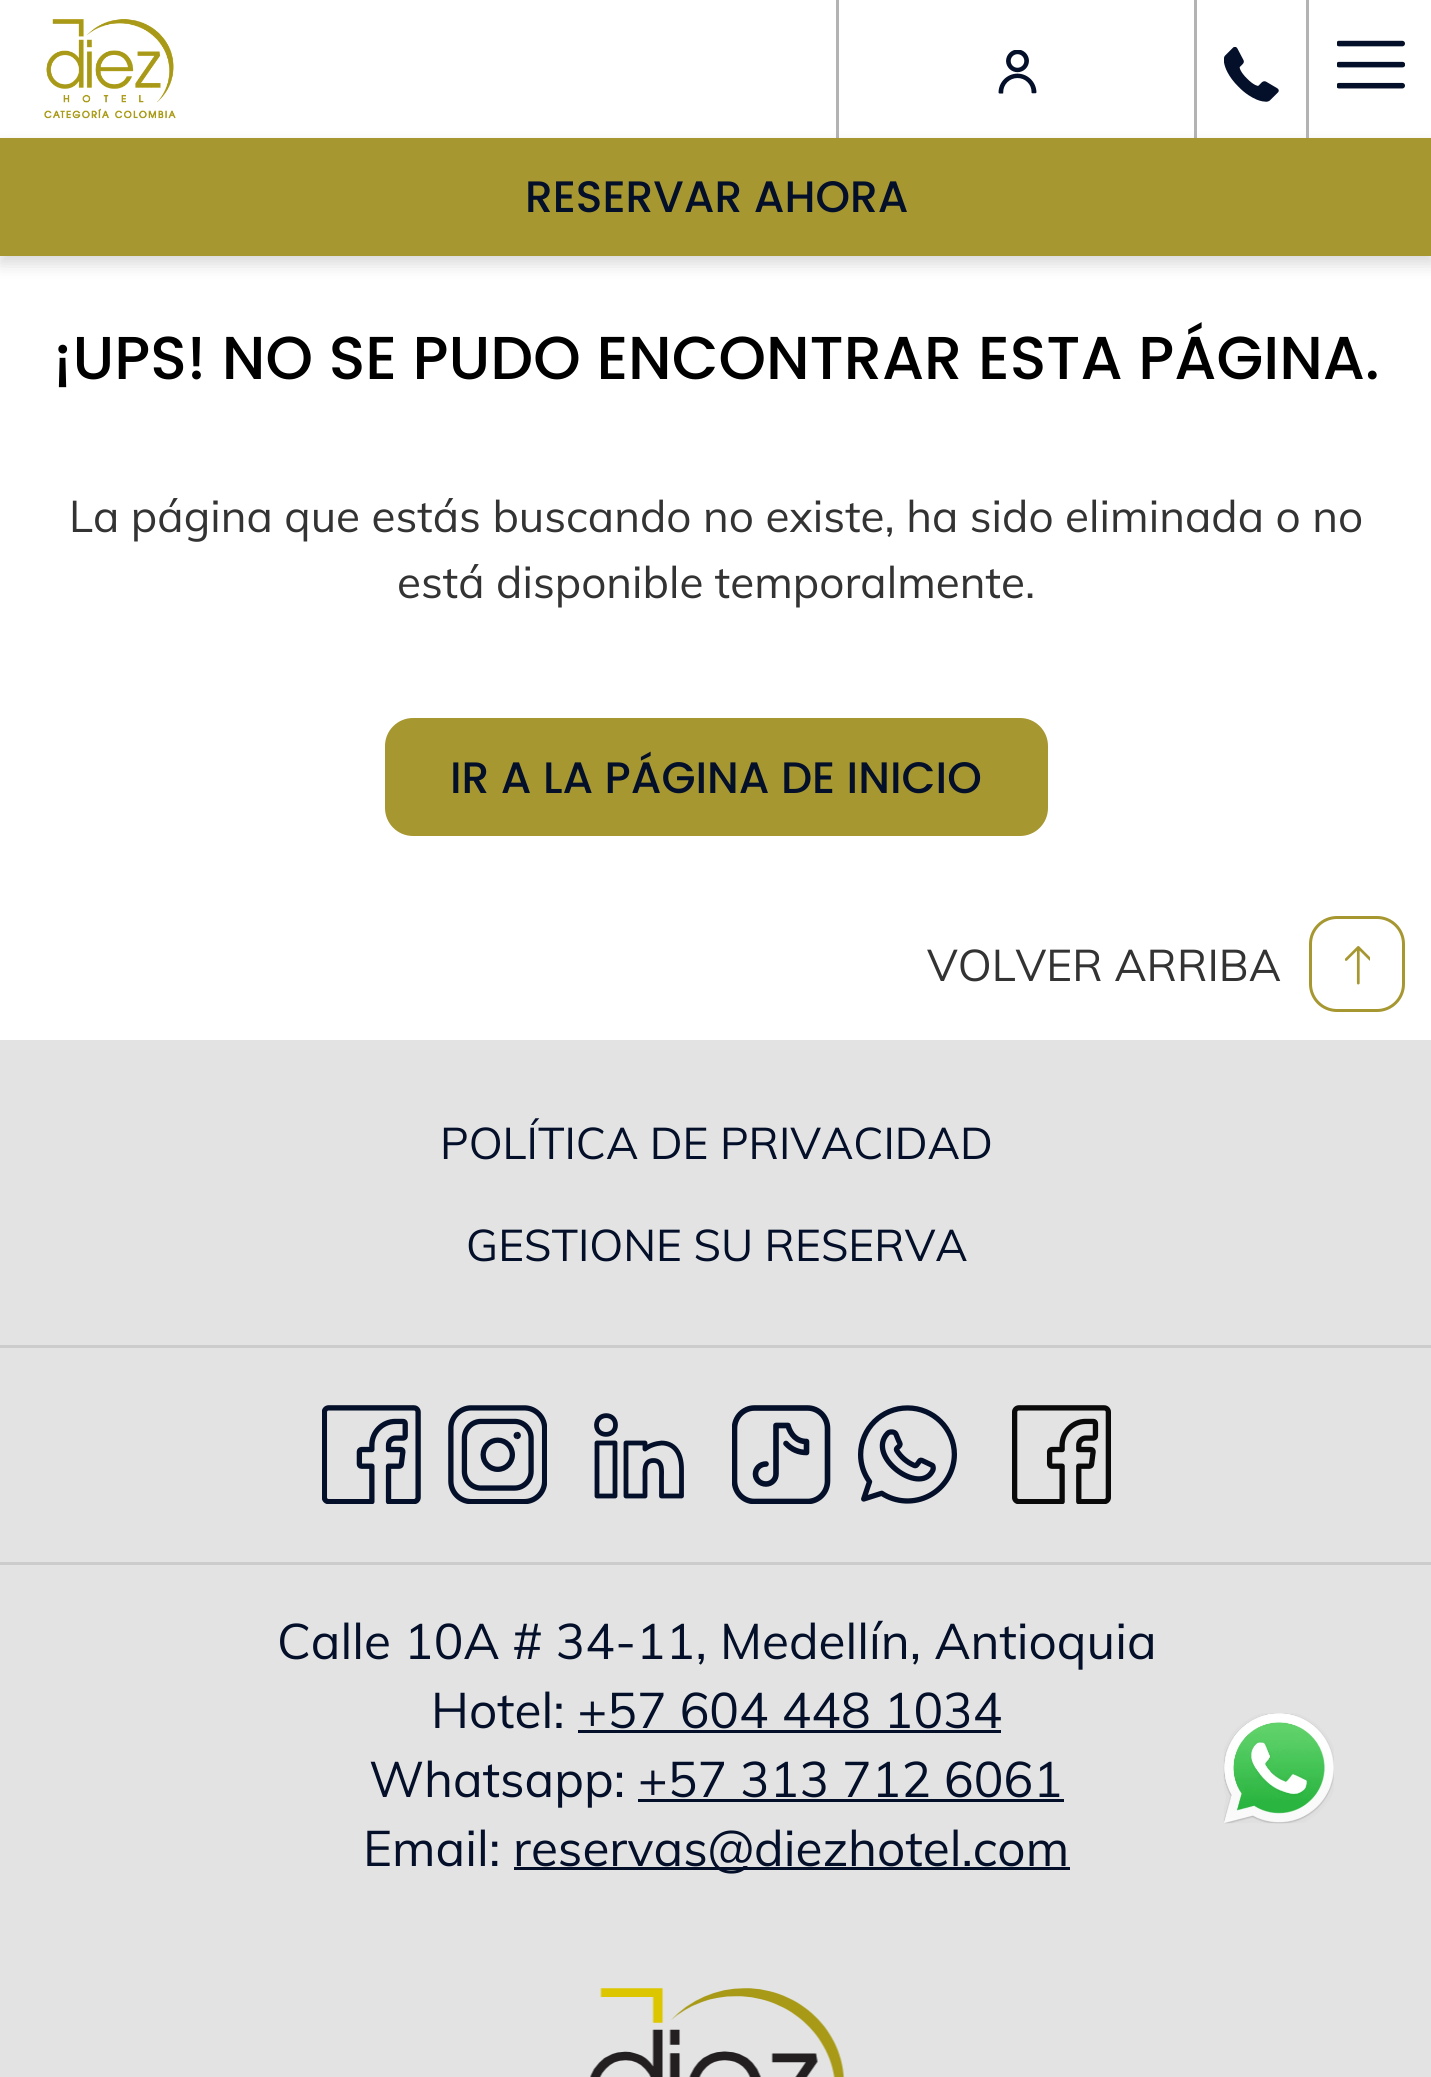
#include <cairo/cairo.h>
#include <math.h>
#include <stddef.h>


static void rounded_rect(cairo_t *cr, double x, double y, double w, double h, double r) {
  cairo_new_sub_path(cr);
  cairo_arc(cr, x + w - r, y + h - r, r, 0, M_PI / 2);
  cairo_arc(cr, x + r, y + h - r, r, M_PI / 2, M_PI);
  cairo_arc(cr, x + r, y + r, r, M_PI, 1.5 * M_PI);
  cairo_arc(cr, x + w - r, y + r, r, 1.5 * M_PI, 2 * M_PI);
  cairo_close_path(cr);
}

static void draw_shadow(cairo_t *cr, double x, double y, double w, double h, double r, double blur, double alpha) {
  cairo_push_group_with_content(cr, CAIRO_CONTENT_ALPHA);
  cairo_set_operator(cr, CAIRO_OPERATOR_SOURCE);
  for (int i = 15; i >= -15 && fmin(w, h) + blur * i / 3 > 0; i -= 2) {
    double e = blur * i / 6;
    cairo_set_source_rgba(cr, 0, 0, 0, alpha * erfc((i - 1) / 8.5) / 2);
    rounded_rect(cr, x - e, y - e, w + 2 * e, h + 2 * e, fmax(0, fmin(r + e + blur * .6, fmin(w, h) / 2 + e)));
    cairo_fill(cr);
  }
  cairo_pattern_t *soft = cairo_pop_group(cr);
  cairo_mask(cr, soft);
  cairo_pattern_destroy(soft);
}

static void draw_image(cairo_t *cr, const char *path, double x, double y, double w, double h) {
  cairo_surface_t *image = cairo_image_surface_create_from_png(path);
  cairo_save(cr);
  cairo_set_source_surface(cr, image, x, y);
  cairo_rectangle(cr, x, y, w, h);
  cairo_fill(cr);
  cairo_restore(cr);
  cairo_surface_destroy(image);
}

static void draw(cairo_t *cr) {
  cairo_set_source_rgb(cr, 1, 1, 1);
  cairo_paint(cr);
  draw_image(cr, "images/1.png", 44, 19, 132, 100);
  cairo_set_source_rgb(cr, 179 / 255.0, 179 / 255.0, 179 / 255.0);
  cairo_rectangle(cr, 836, 0, 3, 138);
  cairo_fill(cr);
  draw_image(cr, "images/2.png", 998, 50, 39, 44);
  cairo_rectangle(cr, 1194, 0, 3, 138);
  cairo_fill(cr);
  draw_image(cr, "images/3.png", 1224, 47, 55, 55);
  cairo_set_source_rgb(cr, 0, 0, 0);
  draw_shadow(cr, 0, 146, 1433, 118, 0, 8, 0.15);
  cairo_set_source_rgb(cr, 179 / 255.0, 179 / 255.0, 179 / 255.0);
  cairo_rectangle(cr, 1306, 0, 3, 138);
  cairo_fill(cr);
  draw_image(cr, "images/4.png", 1337, 40, 68, 49);
  cairo_set_source_rgb(cr, 166 / 255.0, 151 / 255.0, 49 / 255.0);
  cairo_rectangle(cr, 0, 138, 1431, 118);
  cairo_fill(cr);
  rounded_rect(cr, 385, 718, 663, 118, 28);
  cairo_fill(cr);
  rounded_rect(cr, 1310.5, 917.5, 93, 93, 26.5);
  cairo_set_line_width(cr, 3);
  cairo_stroke(cr);
  draw_image(cr, "images/5.png", 1345, 946, 25, 39);
  cairo_set_source_rgb(cr, 227 / 255.0, 227 / 255.0, 227 / 255.0);
  cairo_rectangle(cr, 0, 1040, 1431, 1037);
  cairo_fill(cr);
  cairo_set_source_rgb(cr, 204 / 255.0, 204 / 255.0, 204 / 255.0);
  cairo_rectangle(cr, 0, 1345, 1431, 3);
  cairo_fill(cr);
  cairo_rectangle(cr, 0, 1562, 1431, 3);
  cairo_fill(cr);
  draw_image(cr, "images/6.png", 322, 1405, 99, 99);
  draw_image(cr, "images/7.png", 448, 1405, 99, 99);
  cairo_new_path(cr);
  cairo_move_to(cr, 615, 1496);
  cairo_line_to(cr, 597, 1496);
  cairo_line_to(cr, 597, 1443);
  cairo_line_to(cr, 615, 1443);
  cairo_close_path(cr);
  cairo_move_to(cr, 653.5, 1460.5);
  cairo_curve_to(cr, 643.5, 1460.5, 645, 1471, 645, 1477.5);
  cairo_line_to(cr, 645, 1496);
  cairo_line_to(cr, 626, 1496);
  cairo_line_to(cr, 626, 1443);
  cairo_line_to(cr, 645, 1443);
  cairo_line_to(cr, 645, 1449);
  cairo_curve_to(cr, 649.5, 1445.5, 655.5, 1443.5, 661.5, 1443);
  cairo_curve_to(cr, 673.5, 1443, 681.5, 1452, 681.5, 1469);
  cairo_line_to(cr, 681.5, 1496);
  cairo_line_to(cr, 661.5, 1496);
  cairo_line_to(cr, 661.5, 1477.5);
  cairo_curve_to(cr, 661.5, 1471, 663, 1460.5, 653.5, 1460.5);
  cairo_close_path(cr);
  cairo_move_to(cr, 615.5, 1425);
  cairo_curve_to(cr, 615.5, 1437.5, 596.5, 1437.5, 596.5, 1425);
  cairo_curve_to(cr, 597, 1412.5, 615.5, 1412.5, 615.5, 1425);
  cairo_close_path(cr);
  cairo_set_source_rgb(cr, 4 / 255.0, 15 / 255.0, 41 / 255.0);
  cairo_set_line_width(cr, 4.8);
  cairo_set_line_cap(cr, CAIRO_LINE_CAP_ROUND);
  cairo_set_line_join(cr, CAIRO_LINE_JOIN_ROUND);
  cairo_stroke(cr);
  cairo_new_path(cr);
  cairo_move_to(cr, 786, 1443.5);
  cairo_curve_to(cr, 791.5, 1449.5, 798.5, 1452.5, 806.5, 1452.5);
  cairo_line_to(cr, 806.5, 1441.5);
  cairo_curve_to(cr, 796.5, 1441.5, 790.5, 1434.5, 788, 1425.5);
  cairo_line_to(cr, 776, 1425.5);
  cairo_line_to(cr, 776, 1474);
  cairo_curve_to(cr, 776, 1479.5, 771.5, 1484, 766, 1484);
  cairo_curve_to(cr, 760, 1484, 755.5, 1479.5, 755.5, 1474);
  cairo_curve_to(cr, 755.5, 1468.5, 760, 1464, 766, 1464);
  cairo_set_line_width(cr, 5.6);
  cairo_stroke(cr);
  cairo_save(cr);
  cairo_rectangle(cr, 732, 1405, 99, 99);
  cairo_clip(cr);
  cairo_new_path(cr);
  cairo_move_to(cr, 807.5, 1408);
  cairo_line_to(cr, 754.5, 1408);
  cairo_curve_to(cr, 743.5, 1408, 734.5, 1417, 734.5, 1428.5);
  cairo_line_to(cr, 734.5, 1481);
  cairo_curve_to(cr, 734.5, 1492.5, 743.5, 1501.5, 754.5, 1501.5);
  cairo_line_to(cr, 807.5, 1501.5);
  cairo_curve_to(cr, 818.5, 1501.5, 827.5, 1492.5, 827.5, 1481);
  cairo_line_to(cr, 827.5, 1428.5);
  cairo_curve_to(cr, 827.5, 1417, 818.5, 1408, 807.5, 1408);
  cairo_close_path(cr);
  cairo_stroke(cr);
  cairo_restore(cr);
  draw_image(cr, "images/8.png", 858, 1405, 99, 99);
  draw_image(cr, "images/9.png", 1012, 1405, 99, 99);
  cairo_rectangle(cr, 578, 1730, 423, 3);
  cairo_fill(cr);
  cairo_rectangle(cr, 638, 1799, 426, 3);
  cairo_fill(cr);
  cairo_rectangle(cr, 514, 1867, 556, 3);
  cairo_fill(cr);
  draw_image(cr, "images/10.png", 590, 1988, 255, 89);
  draw_image(cr, "images/11.png", 1223, 1713, 111, 111);
  cairo_select_font_face(cr, "Poppins Medium", CAIRO_FONT_SLANT_NORMAL, CAIRO_FONT_WEIGHT_NORMAL);
  cairo_set_font_size(cr, 44);
  cairo_move_to(cr, 525, 212);
  cairo_show_text(cr, "RESERVAR AHORA");
  cairo_set_font_size(cr, 60.5);
  cairo_set_source_rgb(cr, 0, 0, 0);
  cairo_move_to(cr, 53, 379);
  cairo_show_text(cr, "¡UPS! NO SE PUDO ENCONTRAR ESTA PÁGINA.");
  cairo_select_font_face(cr, "Muli", CAIRO_FONT_SLANT_NORMAL, CAIRO_FONT_WEIGHT_NORMAL);
  cairo_set_font_size(cr, 44);
  cairo_set_source_rgb(cr, 51 / 255.0, 51 / 255.0, 51 / 255.0);
  cairo_move_to(cr, 69, 532);
  cairo_show_text(cr, "La página que estás buscando no existe, ha sido eliminada o no");
  cairo_move_to(cr, 397, 598);
  cairo_show_text(cr, "está disponible temporalmente.");
  cairo_select_font_face(cr, "Poppins Medium", CAIRO_FONT_SLANT_NORMAL, CAIRO_FONT_WEIGHT_NORMAL);
  cairo_set_source_rgb(cr, 4 / 255.0, 15 / 255.0, 41 / 255.0);
  cairo_move_to(cr, 450, 793);
  cairo_show_text(cr, "IR A LA PÁGINA DE INICIO");
  cairo_select_font_face(cr, "Muli", CAIRO_FONT_SLANT_NORMAL, CAIRO_FONT_WEIGHT_NORMAL);
  cairo_set_source_rgb(cr, 51 / 255.0, 51 / 255.0, 51 / 255.0);
  cairo_move_to(cr, 927, 981);
  cairo_show_text(cr, "VOLVER ARRIBA");
  cairo_set_source_rgb(cr, 4 / 255.0, 15 / 255.0, 41 / 255.0);
  cairo_move_to(cr, 440, 1159);
  cairo_show_text(cr, "POLÍTICA DE PRIVACIDAD");
  cairo_move_to(cr, 466, 1261);
  cairo_show_text(cr, "GESTIONE SU RESERVA");
  cairo_set_font_size(cr, 49.5);
  cairo_move_to(cr, 277, 1659);
  cairo_show_text(cr, "Calle 10A # 34-11, Medellín, Antioquia");
  cairo_move_to(cr, 431, 1728);
  cairo_show_text(cr, "Hotel: +57 604 448 1034");
  cairo_move_to(cr, 369, 1797);
  cairo_show_text(cr, "Whatsapp: +57 313 712 6061");
  cairo_move_to(cr, 363, 1866);
  cairo_show_text(cr, "Email:");
  cairo_move_to(cr, 513, 1866);
  cairo_show_text(cr, "reservas@diezhotel.com");
}

int main(void) {
  cairo_surface_t *surface = cairo_image_surface_create(CAIRO_FORMAT_RGB24, 1431, 2077);
  cairo_t *cr = cairo_create(surface);
  cairo_font_options_t *options = cairo_font_options_create();
  cairo_font_options_set_hint_metrics(options, CAIRO_HINT_METRICS_OFF);
  cairo_font_options_set_hint_style(options, CAIRO_HINT_STYLE_NONE);
  cairo_set_font_options(cr, options);
  cairo_set_miter_limit(cr, 4);
  draw(cr);
  cairo_surface_write_to_png(surface, "out.png");
  cairo_font_options_destroy(options);
  cairo_destroy(cr);
  cairo_surface_destroy(surface);
  return 0;
}
